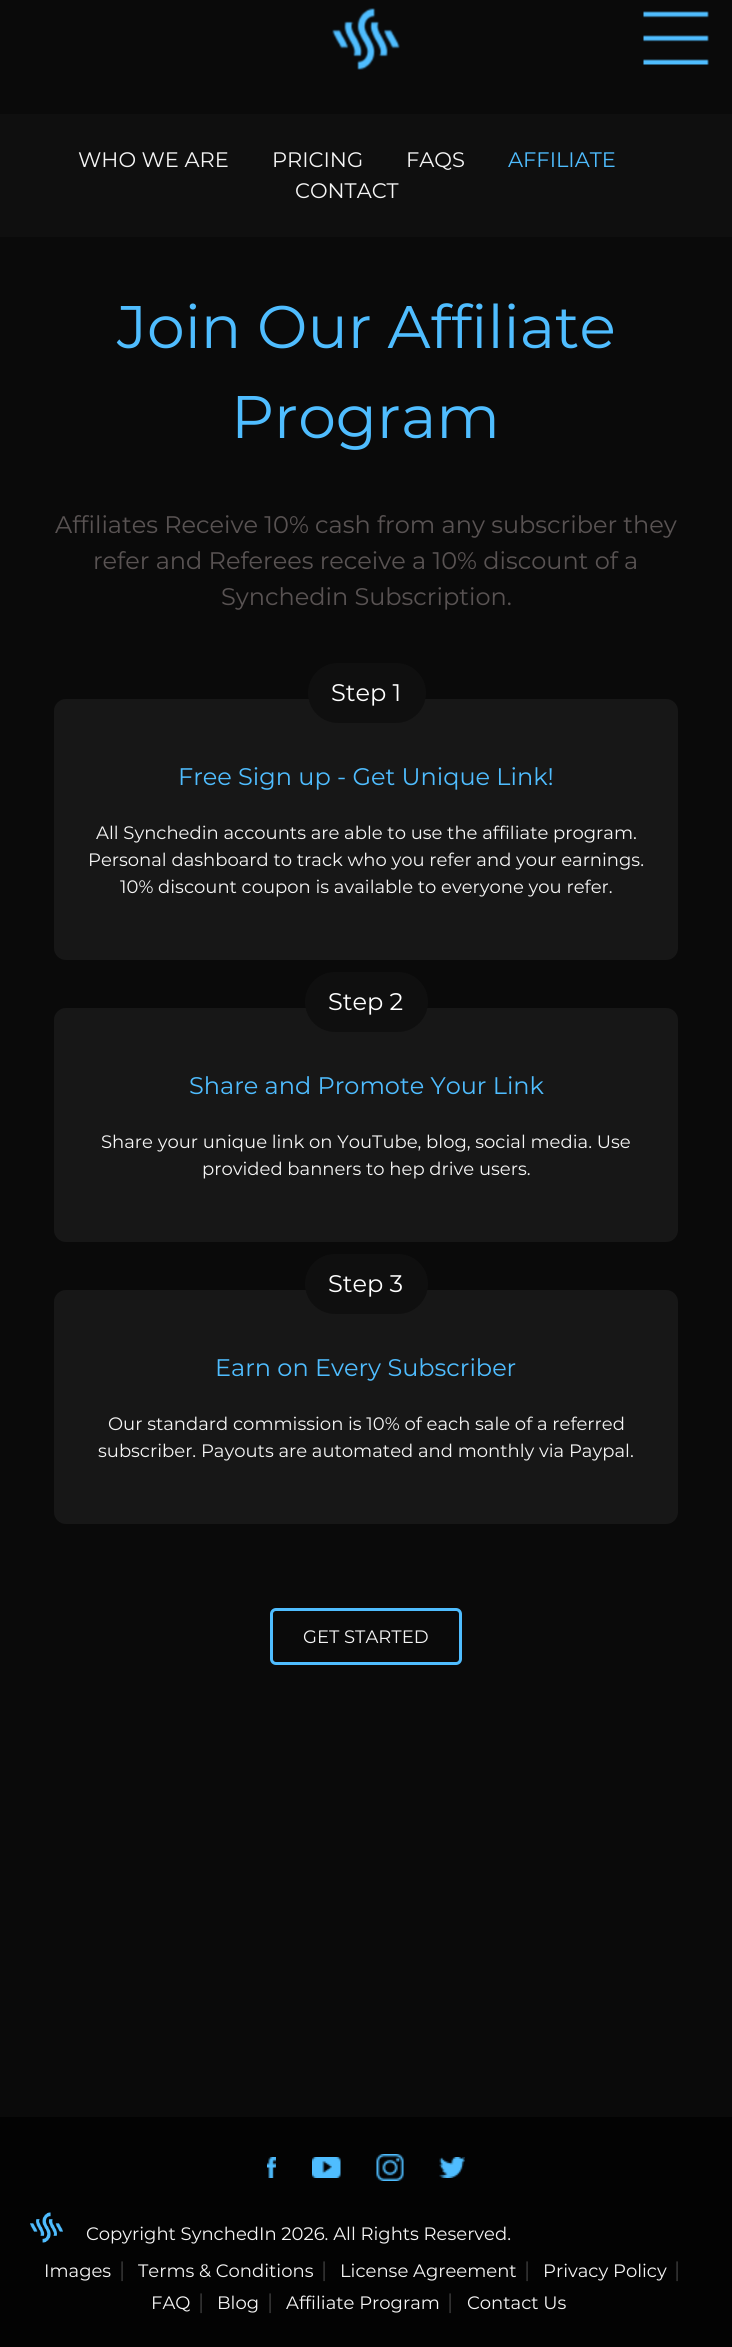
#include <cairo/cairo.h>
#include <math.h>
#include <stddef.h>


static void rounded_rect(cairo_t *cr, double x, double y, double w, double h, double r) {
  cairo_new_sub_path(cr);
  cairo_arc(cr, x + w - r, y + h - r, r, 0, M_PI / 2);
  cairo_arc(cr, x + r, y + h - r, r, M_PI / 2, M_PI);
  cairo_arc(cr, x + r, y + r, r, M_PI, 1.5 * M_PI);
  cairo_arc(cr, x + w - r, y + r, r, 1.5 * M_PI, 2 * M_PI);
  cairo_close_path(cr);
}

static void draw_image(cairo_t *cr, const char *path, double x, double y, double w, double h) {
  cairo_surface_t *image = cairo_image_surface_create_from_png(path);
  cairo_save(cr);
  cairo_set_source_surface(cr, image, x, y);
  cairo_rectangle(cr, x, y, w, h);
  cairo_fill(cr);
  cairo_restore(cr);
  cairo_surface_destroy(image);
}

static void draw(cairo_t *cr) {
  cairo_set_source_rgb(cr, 10 / 255.0, 10 / 255.0, 10 / 255.0);
  cairo_paint(cr);
  draw_image(cr, "images/1.png", 332, 8, 68, 62);
  draw_image(cr, "images/2.png", 643, 11, 66, 54);
  cairo_set_source_rgb(cr, 15 / 255.0, 15 / 255.0, 15 / 255.0);
  cairo_rectangle(cr, 0, 114, 732, 123);
  cairo_fill(cr);
  cairo_set_source_rgb(cr, 23 / 255.0, 23 / 255.0, 23 / 255.0);
  rounded_rect(cr, 54, 699, 624, 261, 12);
  cairo_fill(cr);
  cairo_set_source_rgb(cr, 15 / 255.0, 15 / 255.0, 15 / 255.0);
  rounded_rect(cr, 308, 663, 118, 60, 30);
  cairo_fill(cr);
  cairo_set_source_rgb(cr, 23 / 255.0, 23 / 255.0, 23 / 255.0);
  rounded_rect(cr, 54, 1008, 624, 234, 12);
  cairo_fill(cr);
  cairo_set_source_rgb(cr, 15 / 255.0, 15 / 255.0, 15 / 255.0);
  rounded_rect(cr, 305, 972, 123, 60, 30);
  cairo_fill(cr);
  cairo_set_source_rgb(cr, 23 / 255.0, 23 / 255.0, 23 / 255.0);
  rounded_rect(cr, 54, 1290, 624, 234, 12);
  cairo_fill(cr);
  cairo_set_source_rgb(cr, 15 / 255.0, 15 / 255.0, 15 / 255.0);
  rounded_rect(cr, 305, 1254, 123, 60, 30);
  cairo_fill(cr);
  rounded_rect(cr, 271.5, 1609.5, 189, 54, 4.5);
  cairo_set_source_rgb(cr, 79 / 255.0, 189 / 255.0, 1);
  cairo_set_line_width(cr, 3);
  cairo_stroke(cr);
  cairo_set_source_rgb(cr, 3 / 255.0, 3 / 255.0, 3 / 255.0);
  cairo_rectangle(cr, 0, 2117, 732, 230);
  cairo_fill(cr);
  draw_image(cr, "images/3.png", 267, 2157, 9, 21);
  draw_image(cr, "images/4.png", 312, 2157, 29, 21);
  draw_image(cr, "images/5.png", 376, 2154, 28, 27);
  draw_image(cr, "images/6.png", 439, 2157, 26, 21);
  draw_image(cr, "images/7.png", 30, 2212, 33, 31);
  cairo_select_font_face(cr, "Montserrat", CAIRO_FONT_SLANT_NORMAL, CAIRO_FONT_WEIGHT_NORMAL);
  cairo_set_font_size(cr, 21);
  cairo_set_source_rgb(cr, 245 / 255.0, 245 / 255.0, 245 / 255.0);
  cairo_move_to(cr, 78, 167);
  cairo_show_text(cr, "WHO WE ARE");
  cairo_move_to(cr, 272, 167);
  cairo_show_text(cr, "PRICING");
  cairo_move_to(cr, 406, 167);
  cairo_show_text(cr, "FAQS");
  cairo_set_source_rgb(cr, 79 / 255.0, 189 / 255.0, 1);
  cairo_move_to(cr, 508, 167);
  cairo_show_text(cr, "AFFILIATE");
  cairo_set_source_rgb(cr, 245 / 255.0, 245 / 255.0, 245 / 255.0);
  cairo_move_to(cr, 295, 198);
  cairo_show_text(cr, "CONTACT");
  cairo_set_font_size(cr, 60);
  cairo_set_source_rgb(cr, 79 / 255.0, 189 / 255.0, 1);
  cairo_move_to(cr, 117, 348);
  cairo_show_text(cr, "Join Our Affiliate");
  cairo_move_to(cr, 231, 438);
  cairo_show_text(cr, "Program");
  cairo_set_font_size(cr, 24);
  cairo_set_source_rgb(cr, 89 / 255.0, 83 / 255.0, 83 / 255.0);
  cairo_move_to(cr, 55, 533);
  cairo_show_text(cr, "Affiliates Receive 10% cash from any subscriber they");
  cairo_move_to(cr, 93, 569);
  cairo_show_text(cr, "refer and Referees receive a 10% discount of a");
  cairo_move_to(cr, 221, 605);
  cairo_show_text(cr, "Synchedin Subscription.");
  cairo_set_source_rgb(cr, 1, 1, 1);
  cairo_move_to(cr, 331, 701);
  cairo_show_text(cr, "Step 1");
  cairo_set_source_rgb(cr, 79 / 255.0, 189 / 255.0, 1);
  cairo_move_to(cr, 178, 785);
  cairo_show_text(cr, "Free Sign up - Get Unique Link!");
  cairo_set_font_size(cr, 18);
  cairo_set_source_rgb(cr, 245 / 255.0, 245 / 255.0, 245 / 255.0);
  cairo_move_to(cr, 96, 839);
  cairo_show_text(cr, "All Synchedin accounts are able to use the affiliate program.");
  cairo_move_to(cr, 88, 866);
  cairo_show_text(cr, "Personal dashboard to track who you refer and your earnings.");
  cairo_move_to(cr, 120, 893);
  cairo_show_text(cr, "10% discount coupon is available to everyone you refer.");
  cairo_set_font_size(cr, 24);
  cairo_set_source_rgb(cr, 1, 1, 1);
  cairo_move_to(cr, 328, 1010);
  cairo_show_text(cr, "Step 2");
  cairo_set_source_rgb(cr, 79 / 255.0, 189 / 255.0, 1);
  cairo_move_to(cr, 189, 1094);
  cairo_show_text(cr, "Share and Promote Your Link");
  cairo_set_font_size(cr, 18);
  cairo_set_source_rgb(cr, 245 / 255.0, 245 / 255.0, 245 / 255.0);
  cairo_move_to(cr, 101, 1148);
  cairo_show_text(cr, "Share your unique link on YouTube, blog, social media. Use");
  cairo_move_to(cr, 202, 1175);
  cairo_show_text(cr, "provided banners to hep drive users.");
  cairo_set_font_size(cr, 24);
  cairo_set_source_rgb(cr, 1, 1, 1);
  cairo_move_to(cr, 328, 1292);
  cairo_show_text(cr, "Step 3");
  cairo_set_source_rgb(cr, 79 / 255.0, 189 / 255.0, 1);
  cairo_move_to(cr, 215, 1376);
  cairo_show_text(cr, "Earn on Every Subscriber");
  cairo_set_font_size(cr, 18);
  cairo_set_source_rgb(cr, 245 / 255.0, 245 / 255.0, 245 / 255.0);
  cairo_move_to(cr, 108, 1430);
  cairo_show_text(cr, "Our standard commission is 10% of each sale of a referred");
  cairo_move_to(cr, 98, 1457);
  cairo_show_text(cr, "subscriber. Payouts are automated and monthly via Paypal.");
  cairo_move_to(cr, 303, 1643);
  cairo_show_text(cr, "GET STARTED");
  cairo_move_to(cr, 86, 2240);
  cairo_show_text(cr, "Copyright SynchedIn 2026. All Rights Reserved.");
  cairo_move_to(cr, 44, 2277);
  cairo_show_text(cr, "Images");
  cairo_set_font_size(cr, 21);
  cairo_set_source_rgb(cr, 59 / 255.0, 59 / 255.0, 59 / 255.0);
  cairo_move_to(cr, 119, 2277);
  cairo_show_text(cr, "|");
  cairo_set_font_size(cr, 18);
  cairo_set_source_rgb(cr, 245 / 255.0, 245 / 255.0, 245 / 255.0);
  cairo_move_to(cr, 138, 2277);
  cairo_show_text(cr, "Terms & Conditions");
  cairo_set_font_size(cr, 21);
  cairo_set_source_rgb(cr, 59 / 255.0, 59 / 255.0, 59 / 255.0);
  cairo_move_to(cr, 321, 2277);
  cairo_show_text(cr, "|");
  cairo_set_font_size(cr, 18);
  cairo_set_source_rgb(cr, 245 / 255.0, 245 / 255.0, 245 / 255.0);
  cairo_move_to(cr, 340, 2277);
  cairo_show_text(cr, "License Agreement");
  cairo_set_font_size(cr, 21);
  cairo_set_source_rgb(cr, 59 / 255.0, 59 / 255.0, 59 / 255.0);
  cairo_move_to(cr, 524, 2277);
  cairo_show_text(cr, "|");
  cairo_set_font_size(cr, 18);
  cairo_set_source_rgb(cr, 245 / 255.0, 245 / 255.0, 245 / 255.0);
  cairo_move_to(cr, 543, 2277);
  cairo_show_text(cr, "Privacy Policy");
  cairo_set_font_size(cr, 21);
  cairo_set_source_rgb(cr, 59 / 255.0, 59 / 255.0, 59 / 255.0);
  cairo_move_to(cr, 674, 2277);
  cairo_show_text(cr, "|");
  cairo_set_font_size(cr, 18);
  cairo_set_source_rgb(cr, 245 / 255.0, 245 / 255.0, 245 / 255.0);
  cairo_move_to(cr, 151, 2309);
  cairo_show_text(cr, "FAQ");
  cairo_set_font_size(cr, 21);
  cairo_set_source_rgb(cr, 59 / 255.0, 59 / 255.0, 59 / 255.0);
  cairo_move_to(cr, 198, 2309);
  cairo_show_text(cr, "|");
  cairo_set_font_size(cr, 18);
  cairo_set_source_rgb(cr, 245 / 255.0, 245 / 255.0, 245 / 255.0);
  cairo_move_to(cr, 217, 2309);
  cairo_show_text(cr, "Blog");
  cairo_set_font_size(cr, 21);
  cairo_set_source_rgb(cr, 59 / 255.0, 59 / 255.0, 59 / 255.0);
  cairo_move_to(cr, 267, 2309);
  cairo_show_text(cr, "|");
  cairo_set_font_size(cr, 18);
  cairo_set_source_rgb(cr, 245 / 255.0, 245 / 255.0, 245 / 255.0);
  cairo_move_to(cr, 286, 2309);
  cairo_show_text(cr, "Affiliate Program");
  cairo_set_font_size(cr, 21);
  cairo_set_source_rgb(cr, 59 / 255.0, 59 / 255.0, 59 / 255.0);
  cairo_move_to(cr, 447, 2309);
  cairo_show_text(cr, "|");
  cairo_set_font_size(cr, 18);
  cairo_set_source_rgb(cr, 245 / 255.0, 245 / 255.0, 245 / 255.0);
  cairo_move_to(cr, 467, 2309);
  cairo_show_text(cr, "Contact Us");
}

int main(void) {
  cairo_surface_t *surface = cairo_image_surface_create(CAIRO_FORMAT_RGB24, 732, 2347);
  cairo_t *cr = cairo_create(surface);
  cairo_font_options_t *options = cairo_font_options_create();
  cairo_font_options_set_hint_metrics(options, CAIRO_HINT_METRICS_OFF);
  cairo_font_options_set_hint_style(options, CAIRO_HINT_STYLE_NONE);
  cairo_set_font_options(cr, options);
  cairo_set_miter_limit(cr, 4);
  draw(cr);
  cairo_surface_write_to_png(surface, "out.png");
  cairo_font_options_destroy(options);
  cairo_destroy(cr);
  cairo_surface_destroy(surface);
  return 0;
}
